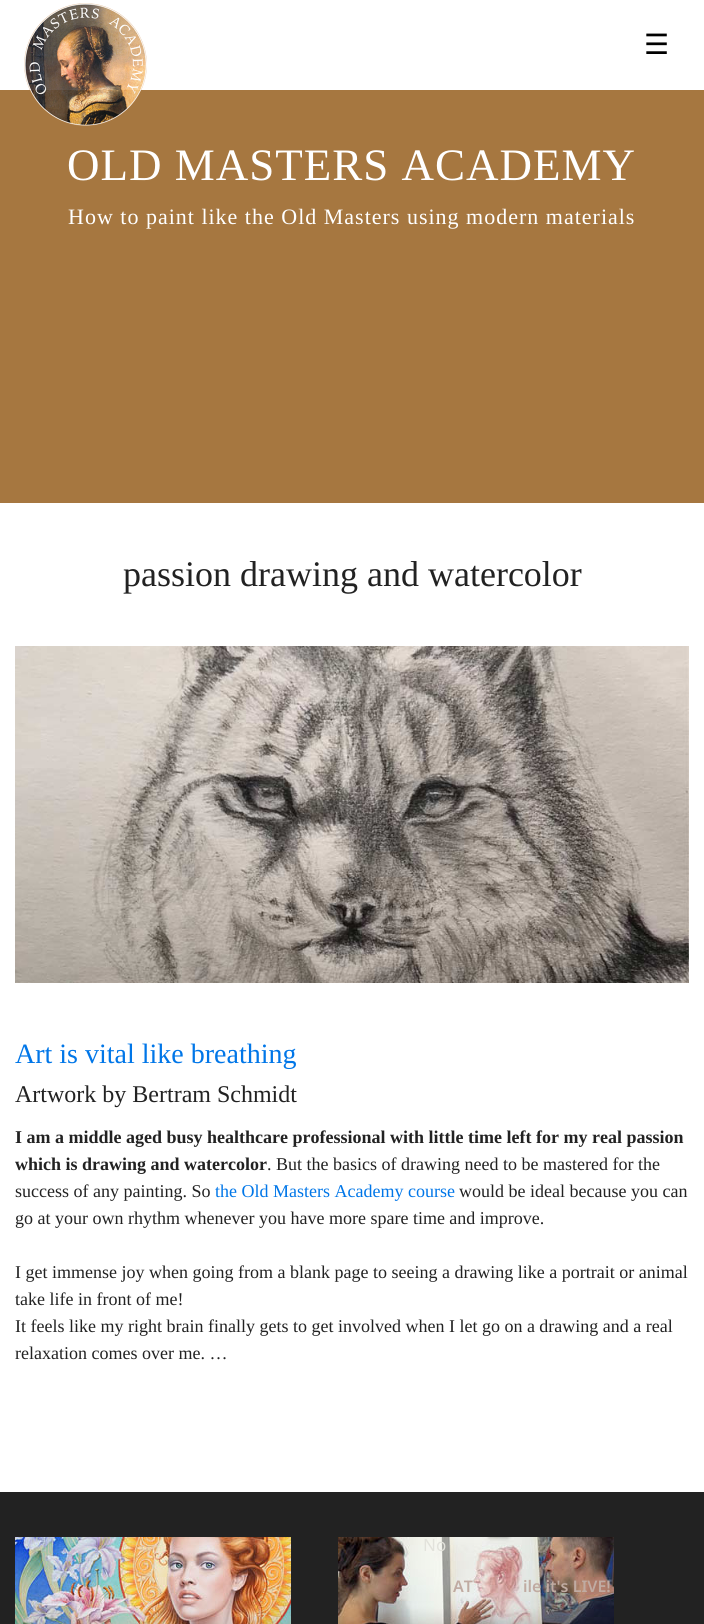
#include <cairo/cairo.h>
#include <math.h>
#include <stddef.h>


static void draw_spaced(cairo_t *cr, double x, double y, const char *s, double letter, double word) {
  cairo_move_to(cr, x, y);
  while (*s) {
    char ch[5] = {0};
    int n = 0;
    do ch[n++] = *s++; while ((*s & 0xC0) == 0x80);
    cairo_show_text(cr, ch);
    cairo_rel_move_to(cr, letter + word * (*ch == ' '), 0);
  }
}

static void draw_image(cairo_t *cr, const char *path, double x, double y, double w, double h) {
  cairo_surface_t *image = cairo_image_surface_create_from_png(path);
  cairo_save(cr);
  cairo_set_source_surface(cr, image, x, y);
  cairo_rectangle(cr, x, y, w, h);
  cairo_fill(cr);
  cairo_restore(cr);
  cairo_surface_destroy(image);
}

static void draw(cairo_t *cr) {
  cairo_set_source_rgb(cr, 1, 1, 1);
  cairo_paint(cr);
  cairo_set_source_rgb(cr, 166 / 255.0, 119 / 255.0, 64 / 255.0);
  cairo_rectangle(cr, 0, 90, 704, 413);
  cairo_fill(cr);
  draw_image(cr, "images/1.png", 24, 3, 123, 123);
  draw_image(cr, "images/2.png", 15, 646, 674, 337);
  cairo_set_source_rgb(cr, 34 / 255.0, 34 / 255.0, 34 / 255.0);
  cairo_rectangle(cr, 0, 1492, 704, 132);
  cairo_fill(cr);
  draw_image(cr, "images/3.png", 15, 1537, 276, 87);
  draw_image(cr, "images/4.png", 338, 1537, 276, 87);
  cairo_select_font_face(cr, "DejaVu Sans", CAIRO_FONT_SLANT_NORMAL, CAIRO_FONT_WEIGHT_NORMAL);
  cairo_set_font_size(cr, 28);
  cairo_set_source_rgb(cr, 0, 0, 0);
  cairo_move_to(cr, 644, 54);
  cairo_show_text(cr, "☰");
  cairo_select_font_face(cr, "Liberation Serif", CAIRO_FONT_SLANT_NORMAL, CAIRO_FONT_WEIGHT_NORMAL);
  cairo_set_font_size(cr, 45);
  cairo_set_source_rgb(cr, 1, 1, 1);
  draw_spaced(cr, 67, 180, "OLD MASTERS ACADEMY", 1, 0);
  cairo_set_font_size(cr, 22);
  draw_spaced(cr, 68, 224, "How to paint like the Old Masters using modern materials", 1, 0);
  cairo_set_font_size(cr, 36);
  cairo_set_source_rgb(cr, 34 / 255.0, 34 / 255.0, 34 / 255.0);
  cairo_move_to(cr, 123, 586);
  cairo_show_text(cr, "passion drawing and watercolor");
  cairo_set_font_size(cr, 28);
  cairo_set_source_rgb(cr, 0, 118 / 255.0, 232 / 255.0);
  cairo_move_to(cr, 15, 1063);
  cairo_show_text(cr, "Art is vital like breathing");
  cairo_set_font_size(cr, 24);
  cairo_set_source_rgb(cr, 34 / 255.0, 34 / 255.0, 34 / 255.0);
  cairo_move_to(cr, 15, 1102);
  cairo_show_text(cr, "Artwork by Bertram Schmidt");
  cairo_select_font_face(cr, "Liberation Serif", CAIRO_FONT_SLANT_NORMAL, CAIRO_FONT_WEIGHT_BOLD);
  cairo_set_font_size(cr, 18);
  cairo_move_to(cr, 15, 1143);
  cairo_show_text(cr, "I am a middle aged busy healthcare professional with little time left for my real passion");
  cairo_move_to(cr, 15, 1170);
  cairo_show_text(cr, "which is drawing and watercolor");
  cairo_select_font_face(cr, "Liberation Serif", CAIRO_FONT_SLANT_NORMAL, CAIRO_FONT_WEIGHT_NORMAL);
  cairo_move_to(cr, 267, 1170);
  cairo_show_text(cr, ". But the basics of drawing need to be mastered for the");
  cairo_move_to(cr, 15, 1197);
  cairo_show_text(cr, "success of any painting. So");
  cairo_set_source_rgb(cr, 0, 118 / 255.0, 232 / 255.0);
  cairo_move_to(cr, 215, 1197);
  cairo_show_text(cr, "the Old Masters Academy course");
  cairo_set_source_rgb(cr, 34 / 255.0, 34 / 255.0, 34 / 255.0);
  cairo_move_to(cr, 459, 1197);
  cairo_show_text(cr, "would be ideal because you can");
  cairo_move_to(cr, 15, 1224);
  cairo_show_text(cr, "go at your own rhythm whenever you have more spare time and improve.");
  cairo_move_to(cr, 15, 1278);
  cairo_show_text(cr, "I get immense joy when going from a blank page to seeing a drawing like a portrait or animal");
  cairo_move_to(cr, 15, 1305);
  cairo_show_text(cr, "take life in front of me!");
  cairo_move_to(cr, 15, 1332);
  cairo_show_text(cr, "It feels like my right brain finally gets to get involved when I let go on a drawing and a real");
  cairo_move_to(cr, 15, 1359);
  cairo_show_text(cr, "relaxation comes over me. …");
  cairo_select_font_face(cr, "Noto Sans", CAIRO_FONT_SLANT_NORMAL, CAIRO_FONT_WEIGHT_NORMAL);
  cairo_set_font_size(cr, 17);
  cairo_set_source_rgb(cr, 226 / 255.0, 226 / 255.0, 219 / 255.0);
  cairo_move_to(cr, 423, 1551);
  cairo_show_text(cr, "No");
  cairo_select_font_face(cr, "Noto Sans SemiBold", CAIRO_FONT_SLANT_NORMAL, CAIRO_FONT_WEIGHT_NORMAL);
  cairo_set_font_size(cr, 16);
  cairo_set_source_rgb(cr, 192 / 255.0, 171 / 255.0, 162 / 255.0);
  cairo_move_to(cr, 453, 1592);
  cairo_show_text(cr, "AT");
  cairo_move_to(cr, 523, 1592);
  cairo_show_text(cr, "ile it's LIVE!");
}

int main(void) {
  cairo_surface_t *surface = cairo_image_surface_create(CAIRO_FORMAT_RGB24, 704, 1624);
  cairo_t *cr = cairo_create(surface);
  cairo_font_options_t *options = cairo_font_options_create();
  cairo_font_options_set_hint_metrics(options, CAIRO_HINT_METRICS_OFF);
  cairo_font_options_set_hint_style(options, CAIRO_HINT_STYLE_NONE);
  cairo_set_font_options(cr, options);
  cairo_set_miter_limit(cr, 4);
  draw(cr);
  cairo_surface_write_to_png(surface, "out.png");
  cairo_font_options_destroy(options);
  cairo_destroy(cr);
  cairo_surface_destroy(surface);
  return 0;
}
